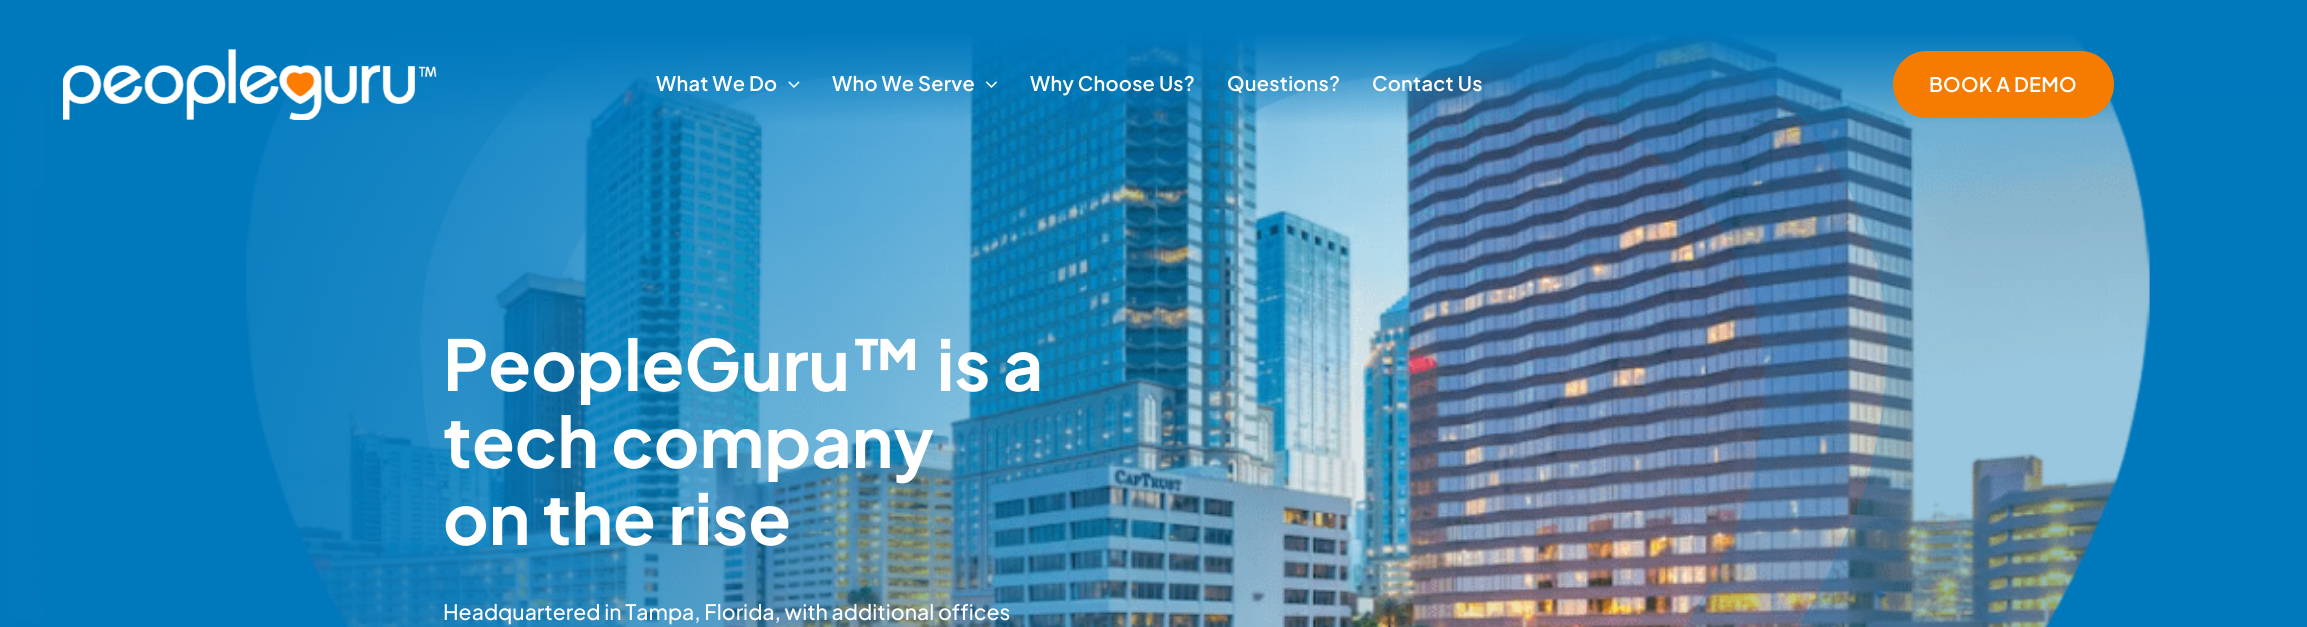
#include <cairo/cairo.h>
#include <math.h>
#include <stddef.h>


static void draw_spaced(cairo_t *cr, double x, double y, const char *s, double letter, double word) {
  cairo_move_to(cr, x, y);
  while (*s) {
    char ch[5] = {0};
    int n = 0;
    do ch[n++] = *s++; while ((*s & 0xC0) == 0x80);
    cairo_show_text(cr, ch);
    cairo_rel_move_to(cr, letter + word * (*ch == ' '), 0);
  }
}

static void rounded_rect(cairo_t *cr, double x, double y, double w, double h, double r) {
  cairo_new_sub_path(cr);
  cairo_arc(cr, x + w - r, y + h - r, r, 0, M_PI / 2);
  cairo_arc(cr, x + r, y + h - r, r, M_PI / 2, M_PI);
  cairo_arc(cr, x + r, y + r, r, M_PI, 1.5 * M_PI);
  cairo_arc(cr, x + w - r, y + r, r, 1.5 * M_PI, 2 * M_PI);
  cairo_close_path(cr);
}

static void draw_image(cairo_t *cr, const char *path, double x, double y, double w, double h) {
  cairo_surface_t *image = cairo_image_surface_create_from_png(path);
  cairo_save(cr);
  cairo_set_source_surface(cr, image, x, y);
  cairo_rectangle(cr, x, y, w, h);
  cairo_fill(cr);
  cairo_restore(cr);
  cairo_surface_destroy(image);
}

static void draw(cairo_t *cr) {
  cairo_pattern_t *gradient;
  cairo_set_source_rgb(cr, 1, 1, 1);
  cairo_paint(cr);
  draw_image(cr, "images/4.png", 0, 31, 2150, 596);
  draw_image(cr, "images/5.png", 43, 31, 2264, 596);
  gradient = cairo_pattern_create_linear(1154, 0, 1154, 169);
  cairo_pattern_add_color_stop_rgba(gradient, 0.18, 0, 120 / 255.0, 188 / 255.0, 1);
  cairo_pattern_add_color_stop_rgba(gradient, 0.74, 0, 120 / 255.0, 188 / 255.0, 0);
  cairo_set_source(cr, gradient);
  cairo_pattern_destroy(gradient);
  cairo_rectangle(cr, 0, 0, 2307, 123);
  cairo_fill(cr);
  draw_image(cr, "images/1.png", 63, 49, 374, 71);
  draw_image(cr, "images/2.png", 788, 81, 12, 7);
  draw_image(cr, "images/3.png", 985, 81, 12, 7);
  cairo_set_source_rgb(cr, 246 / 255.0, 124 / 255.0, 0);
  rounded_rect(cr, 1893, 51, 221, 67, 33.5);
  cairo_fill(cr);
  cairo_select_font_face(cr, "Plus Jakarta Sans SemiBold", CAIRO_FONT_SLANT_NORMAL, CAIRO_FONT_WEIGHT_NORMAL);
  cairo_set_font_size(cr, 20);
  cairo_set_source_rgb(cr, 1, 1, 1);
  draw_spaced(cr, 656, 91, "What We Do", 0.25, 0);
  draw_spaced(cr, 832, 91, "Who We Serve", 0.25, 0);
  draw_spaced(cr, 1030, 91, "Why Choose Us?", 0.25, 0);
  draw_spaced(cr, 1227, 91, "Questions?", 0.25, 0);
  draw_spaced(cr, 1372, 91, "Contact Us", 0.25, 0);
  draw_spaced(cr, 1929, 92, "BOOK A DEMO", 0.25, 0);
  cairo_select_font_face(cr, "Plus Jakarta Sans", CAIRO_FONT_SLANT_NORMAL, CAIRO_FONT_WEIGHT_BOLD);
  cairo_set_font_size(cr, 70);
  cairo_move_to(cr, 443, 391);
  cairo_show_text(cr, "PeopleGuru™ is a");
  cairo_move_to(cr, 443, 468);
  cairo_show_text(cr, "tech company");
  cairo_move_to(cr, 443, 545);
  cairo_show_text(cr, "on the rise");
  cairo_select_font_face(cr, "Plus Jakarta Sans Medium", CAIRO_FONT_SLANT_NORMAL, CAIRO_FONT_WEIGHT_NORMAL);
  cairo_set_font_size(cr, 21.25);
  cairo_move_to(cr, 443, 620);
  cairo_show_text(cr, "Headquartered in Tampa, Florida, with additional offices");
}

int main(void) {
  cairo_surface_t *surface = cairo_image_surface_create(CAIRO_FORMAT_RGB24, 2307, 627);
  cairo_t *cr = cairo_create(surface);
  cairo_font_options_t *options = cairo_font_options_create();
  cairo_font_options_set_hint_metrics(options, CAIRO_HINT_METRICS_OFF);
  cairo_font_options_set_hint_style(options, CAIRO_HINT_STYLE_NONE);
  cairo_set_font_options(cr, options);
  cairo_set_miter_limit(cr, 4);
  draw(cr);
  cairo_surface_write_to_png(surface, "out.png");
  cairo_font_options_destroy(options);
  cairo_destroy(cr);
  cairo_surface_destroy(surface);
  return 0;
}
